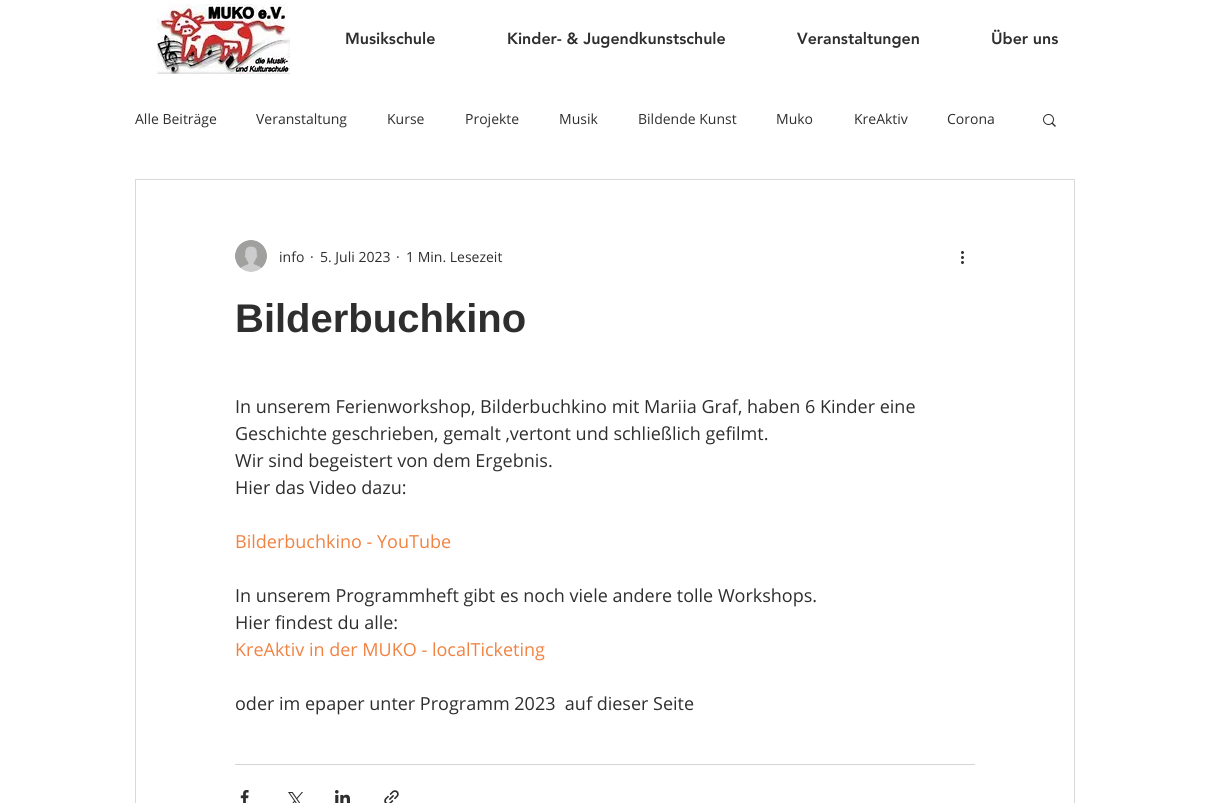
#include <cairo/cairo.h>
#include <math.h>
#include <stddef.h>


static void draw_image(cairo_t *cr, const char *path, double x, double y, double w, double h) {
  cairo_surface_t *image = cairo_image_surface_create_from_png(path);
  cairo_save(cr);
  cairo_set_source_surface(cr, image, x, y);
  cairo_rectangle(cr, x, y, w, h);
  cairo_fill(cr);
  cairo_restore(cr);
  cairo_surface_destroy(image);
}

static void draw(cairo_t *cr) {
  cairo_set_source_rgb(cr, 1, 1, 1);
  cairo_paint(cr);
  draw_image(cr, "images/1.png", 157, 4, 133, 70);
  draw_image(cr, "images/2.png", 1043, 114, 13, 13);
  cairo_rectangle(cr, 135.5, 179.5, 939, 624);
  cairo_set_source_rgb(cr, 217 / 255.0, 217 / 255.0, 217 / 255.0);
  cairo_set_line_width(cr, 1);
  cairo_stroke(cr);
  draw_image(cr, "images/3.png", 235, 240, 32, 32);
  draw_image(cr, "images/4.png", 961, 251, 3, 13);
  cairo_set_source_rgb(cr, 213 / 255.0, 213 / 255.0, 213 / 255.0);
  cairo_rectangle(cr, 235, 764, 740, 1);
  cairo_fill(cr);
  draw_image(cr, "images/5.png", 240, 790, 9, 13);
  draw_image(cr, "images/6.png", 288, 792, 15, 11);
  draw_image(cr, "images/7.png", 335, 790, 15, 13);
  draw_image(cr, "images/8.png", 384, 790, 15, 13);
  cairo_select_font_face(cr, "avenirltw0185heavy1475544 Black", CAIRO_FONT_SLANT_NORMAL, CAIRO_FONT_WEIGHT_NORMAL);
  cairo_set_font_size(cr, 16);
  cairo_set_source_rgb(cr, 47 / 255.0, 46 / 255.0, 46 / 255.0);
  cairo_move_to(cr, 345, 44);
  cairo_show_text(cr, "Musikschule");
  cairo_move_to(cr, 507, 44);
  cairo_show_text(cr, "Kinder- & Jugendkunstschule");
  cairo_move_to(cr, 797, 44);
  cairo_show_text(cr, "Veranstaltungen");
  cairo_move_to(cr, 991, 44);
  cairo_show_text(cr, "Über uns");
  cairo_select_font_face(cr, "Open Sans", CAIRO_FONT_SLANT_NORMAL, CAIRO_FONT_WEIGHT_NORMAL);
  cairo_set_font_size(cr, 14);
  cairo_move_to(cr, 135, 124);
  cairo_show_text(cr, "Alle Beiträge");
  cairo_move_to(cr, 256, 124);
  cairo_show_text(cr, "Veranstaltung");
  cairo_move_to(cr, 387, 124);
  cairo_show_text(cr, "Kurse");
  cairo_move_to(cr, 465, 124);
  cairo_show_text(cr, "Projekte");
  cairo_move_to(cr, 559, 124);
  cairo_show_text(cr, "Musik");
  cairo_move_to(cr, 638, 124);
  cairo_show_text(cr, "Bildende Kunst");
  cairo_move_to(cr, 776, 124);
  cairo_show_text(cr, "Muko");
  cairo_move_to(cr, 854, 124);
  cairo_show_text(cr, "KreAktiv");
  cairo_move_to(cr, 947, 124);
  cairo_show_text(cr, "Corona");
  cairo_move_to(cr, 279, 262);
  cairo_show_text(cr, "info");
  cairo_move_to(cr, 310, 262);
  cairo_show_text(cr, "·");
  cairo_move_to(cr, 320, 262);
  cairo_show_text(cr, "5. Juli 2023");
  cairo_move_to(cr, 396, 262);
  cairo_show_text(cr, "·");
  cairo_move_to(cr, 406, 262);
  cairo_show_text(cr, "1 Min. Lesezeit");
  cairo_select_font_face(cr, "Liberation Sans", CAIRO_FONT_SLANT_NORMAL, CAIRO_FONT_WEIGHT_BOLD);
  cairo_set_font_size(cr, 40);
  cairo_move_to(cr, 235, 332);
  cairo_show_text(cr, "Bilderbuchkino");
  cairo_select_font_face(cr, "Open Sans", CAIRO_FONT_SLANT_NORMAL, CAIRO_FONT_WEIGHT_NORMAL);
  cairo_set_font_size(cr, 18);
  cairo_move_to(cr, 235, 413);
  cairo_show_text(cr, "In unserem Ferienworkshop, Bilderbuchkino mit Mariia Graf, haben 6 Kinder eine");
  cairo_move_to(cr, 235, 440);
  cairo_show_text(cr, "Geschichte geschrieben, gemalt ,vertont und schließlich gefilmt.");
  cairo_move_to(cr, 235, 467);
  cairo_show_text(cr, "Wir sind begeistert von dem Ergebnis.");
  cairo_move_to(cr, 235, 494);
  cairo_show_text(cr, "Hier das Video dazu:");
  cairo_set_source_rgb(cr, 242 / 255.0, 130 / 255.0, 65 / 255.0);
  cairo_move_to(cr, 235, 548);
  cairo_show_text(cr, "Bilderbuchkino - YouTube");
  cairo_set_source_rgb(cr, 47 / 255.0, 46 / 255.0, 46 / 255.0);
  cairo_move_to(cr, 235, 602);
  cairo_show_text(cr, "In unserem Programmheft gibt es noch viele andere tolle Workshops.");
  cairo_move_to(cr, 235, 629);
  cairo_show_text(cr, "Hier findest du alle:");
  cairo_set_source_rgb(cr, 242 / 255.0, 130 / 255.0, 65 / 255.0);
  cairo_move_to(cr, 235, 656);
  cairo_show_text(cr, "KreAktiv in der MUKO - localTicketing");
  cairo_set_source_rgb(cr, 47 / 255.0, 46 / 255.0, 46 / 255.0);
  cairo_move_to(cr, 235, 710);
  cairo_show_text(cr, "oder im epaper unter Programm 2023  auf dieser Seite");
}

int main(void) {
  cairo_surface_t *surface = cairo_image_surface_create(CAIRO_FORMAT_RGB24, 1209, 803);
  cairo_t *cr = cairo_create(surface);
  cairo_font_options_t *options = cairo_font_options_create();
  cairo_font_options_set_hint_metrics(options, CAIRO_HINT_METRICS_OFF);
  cairo_font_options_set_hint_style(options, CAIRO_HINT_STYLE_NONE);
  cairo_set_font_options(cr, options);
  cairo_set_miter_limit(cr, 4);
  draw(cr);
  cairo_surface_write_to_png(surface, "out.png");
  cairo_font_options_destroy(options);
  cairo_destroy(cr);
  cairo_surface_destroy(surface);
  return 0;
}
